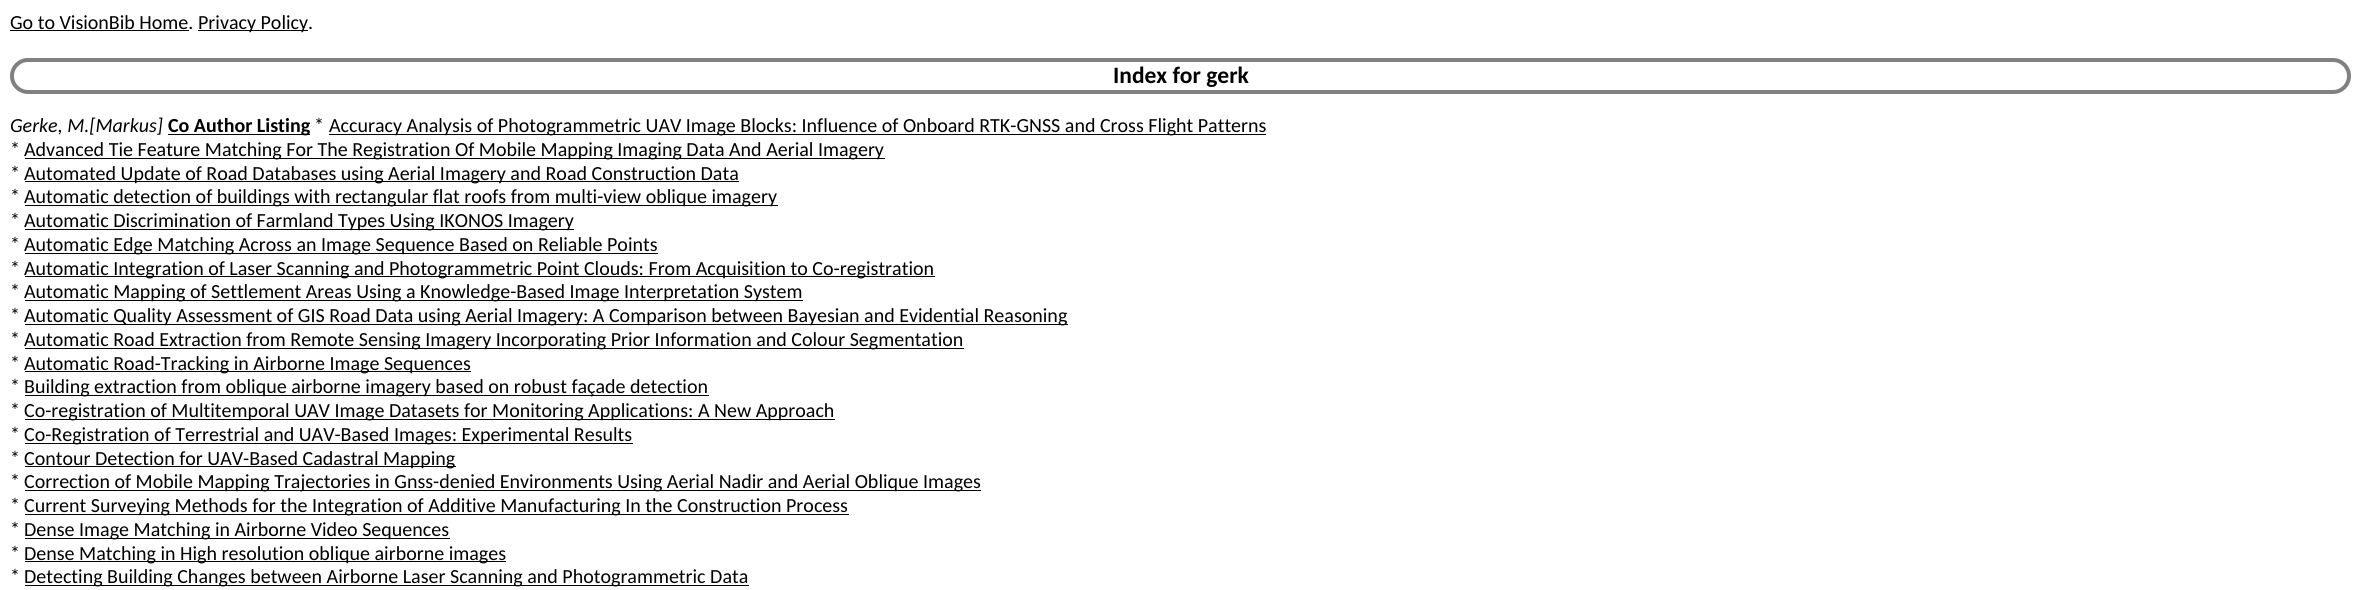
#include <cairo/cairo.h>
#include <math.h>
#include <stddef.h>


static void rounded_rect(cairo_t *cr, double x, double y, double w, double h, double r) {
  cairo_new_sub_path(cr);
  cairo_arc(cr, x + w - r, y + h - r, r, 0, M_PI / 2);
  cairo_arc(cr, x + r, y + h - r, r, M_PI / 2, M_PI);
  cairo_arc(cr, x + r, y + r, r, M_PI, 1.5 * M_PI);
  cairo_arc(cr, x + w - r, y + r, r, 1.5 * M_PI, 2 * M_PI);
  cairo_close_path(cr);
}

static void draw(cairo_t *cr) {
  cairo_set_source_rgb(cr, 1, 1, 1);
  cairo_paint(cr);
  cairo_set_source_rgb(cr, 0, 0, 0);
  cairo_rectangle(cr, 10, 30, 179, 1);
  cairo_fill(cr);
  cairo_rectangle(cr, 198, 30, 110, 1);
  cairo_fill(cr);
  rounded_rect(cr, 12, 60, 2337, 32, 16);
  cairo_set_source_rgb(cr, 128 / 255.0, 128 / 255.0, 128 / 255.0);
  cairo_set_line_width(cr, 4);
  cairo_stroke(cr);
  cairo_set_source_rgb(cr, 0, 0, 0);
  cairo_rectangle(cr, 168, 134, 142, 1);
  cairo_fill(cr);
  cairo_rectangle(cr, 329, 134, 937, 1);
  cairo_fill(cr);
  cairo_rectangle(cr, 25, 158, 860, 1);
  cairo_fill(cr);
  cairo_rectangle(cr, 25, 181, 714, 1);
  cairo_fill(cr);
  cairo_rectangle(cr, 25, 205, 753, 1);
  cairo_fill(cr);
  cairo_rectangle(cr, 25, 229, 549, 1);
  cairo_fill(cr);
  cairo_rectangle(cr, 25, 253, 633, 1);
  cairo_fill(cr);
  cairo_rectangle(cr, 25, 276, 910, 1);
  cairo_fill(cr);
  cairo_rectangle(cr, 25, 300, 778, 1);
  cairo_fill(cr);
  cairo_rectangle(cr, 25, 324, 1043, 1);
  cairo_fill(cr);
  cairo_rectangle(cr, 25, 348, 939, 1);
  cairo_fill(cr);
  cairo_rectangle(cr, 25, 371, 446, 1);
  cairo_fill(cr);
  cairo_rectangle(cr, 25, 395, 684, 1);
  cairo_fill(cr);
  cairo_rectangle(cr, 25, 419, 810, 1);
  cairo_fill(cr);
  cairo_rectangle(cr, 25, 443, 608, 1);
  cairo_fill(cr);
  cairo_rectangle(cr, 25, 466, 431, 1);
  cairo_fill(cr);
  cairo_rectangle(cr, 25, 490, 956, 1);
  cairo_fill(cr);
  cairo_rectangle(cr, 25, 514, 824, 1);
  cairo_fill(cr);
  cairo_rectangle(cr, 25, 538, 425, 1);
  cairo_fill(cr);
  cairo_rectangle(cr, 25, 561, 481, 1);
  cairo_fill(cr);
  cairo_rectangle(cr, 25, 585, 724, 1);
  cairo_fill(cr);
  cairo_select_font_face(cr, "Carlito", CAIRO_FONT_SLANT_NORMAL, CAIRO_FONT_WEIGHT_NORMAL);
  cairo_set_font_size(cr, 20);
  cairo_move_to(cr, 10, 29);
  cairo_show_text(cr, "Go to VisionBib Home.");
  cairo_move_to(cr, 198, 29);
  cairo_show_text(cr, "Privacy Policy.");
  cairo_select_font_face(cr, "Carlito", CAIRO_FONT_SLANT_NORMAL, CAIRO_FONT_WEIGHT_BOLD);
  cairo_set_font_size(cr, 23.5);
  cairo_move_to(cr, 1113, 83);
  cairo_show_text(cr, "Index for gerk");
  cairo_select_font_face(cr, "Carlito", CAIRO_FONT_SLANT_ITALIC, CAIRO_FONT_WEIGHT_NORMAL);
  cairo_set_font_size(cr, 20);
  cairo_move_to(cr, 10, 132);
  cairo_show_text(cr, "Gerke, M.[Markus]");
  cairo_select_font_face(cr, "Carlito", CAIRO_FONT_SLANT_NORMAL, CAIRO_FONT_WEIGHT_BOLD);
  cairo_move_to(cr, 168, 132);
  cairo_show_text(cr, "Co Author Listing");
  cairo_select_font_face(cr, "Carlito", CAIRO_FONT_SLANT_NORMAL, CAIRO_FONT_WEIGHT_NORMAL);
  cairo_move_to(cr, 314, 132);
  cairo_show_text(cr, "*");
  cairo_move_to(cr, 329, 132);
  cairo_show_text(cr, "Accuracy Analysis of Photogrammetric UAV Image Blocks: Influence of Onboard RTK-GNSS and Cross Flight Patterns");
  cairo_move_to(cr, 10, 156);
  cairo_show_text(cr, "*");
  cairo_move_to(cr, 24, 156);
  cairo_show_text(cr, "Advanced Tie Feature Matching For The Registration Of Mobile Mapping Imaging Data And Aerial Imagery");
  cairo_move_to(cr, 10, 180);
  cairo_show_text(cr, "*");
  cairo_move_to(cr, 24, 180);
  cairo_show_text(cr, "Automated Update of Road Databases using Aerial Imagery and Road Construction Data");
  cairo_move_to(cr, 10, 203);
  cairo_show_text(cr, "*");
  cairo_move_to(cr, 24, 203);
  cairo_show_text(cr, "Automatic detection of buildings with rectangular flat roofs from multi-view oblique imagery");
  cairo_move_to(cr, 10, 227);
  cairo_show_text(cr, "*");
  cairo_move_to(cr, 24, 227);
  cairo_show_text(cr, "Automatic Discrimination of Farmland Types Using IKONOS Imagery");
  cairo_move_to(cr, 10, 251);
  cairo_show_text(cr, "*");
  cairo_move_to(cr, 24, 251);
  cairo_show_text(cr, "Automatic Edge Matching Across an Image Sequence Based on Reliable Points");
  cairo_move_to(cr, 10, 275);
  cairo_show_text(cr, "*");
  cairo_move_to(cr, 24, 275);
  cairo_show_text(cr, "Automatic Integration of Laser Scanning and Photogrammetric Point Clouds: From Acquisition to Co-registration");
  cairo_move_to(cr, 10, 298);
  cairo_show_text(cr, "*");
  cairo_move_to(cr, 24, 298);
  cairo_show_text(cr, "Automatic Mapping of Settlement Areas Using a Knowledge-Based Image Interpretation System");
  cairo_move_to(cr, 10, 322);
  cairo_show_text(cr, "*");
  cairo_move_to(cr, 24, 322);
  cairo_show_text(cr, "Automatic Quality Assessment of GIS Road Data using Aerial Imagery: A Comparison between Bayesian and Evidential Reasoning");
  cairo_move_to(cr, 10, 346);
  cairo_show_text(cr, "*");
  cairo_move_to(cr, 24, 346);
  cairo_show_text(cr, "Automatic Road Extraction from Remote Sensing Imagery Incorporating Prior Information and Colour Segmentation");
  cairo_move_to(cr, 10, 370);
  cairo_show_text(cr, "*");
  cairo_move_to(cr, 24, 370);
  cairo_show_text(cr, "Automatic Road-Tracking in Airborne Image Sequences");
  cairo_move_to(cr, 10, 393);
  cairo_show_text(cr, "*");
  cairo_move_to(cr, 24, 393);
  cairo_show_text(cr, "Building extraction from oblique airborne imagery based on robust façade detection");
  cairo_move_to(cr, 10, 417);
  cairo_show_text(cr, "*");
  cairo_move_to(cr, 24, 417);
  cairo_show_text(cr, "Co-registration of Multitemporal UAV Image Datasets for Monitoring Applications: A New Approach");
  cairo_move_to(cr, 10, 441);
  cairo_show_text(cr, "*");
  cairo_move_to(cr, 24, 441);
  cairo_show_text(cr, "Co-Registration of Terrestrial and UAV-Based Images: Experimental Results");
  cairo_move_to(cr, 10, 465);
  cairo_show_text(cr, "*");
  cairo_move_to(cr, 24, 465);
  cairo_show_text(cr, "Contour Detection for UAV-Based Cadastral Mapping");
  cairo_move_to(cr, 10, 488);
  cairo_show_text(cr, "*");
  cairo_move_to(cr, 24, 488);
  cairo_show_text(cr, "Correction of Mobile Mapping Trajectories in Gnss-denied Environments Using Aerial Nadir and Aerial Oblique Images");
  cairo_move_to(cr, 10, 512);
  cairo_show_text(cr, "*");
  cairo_move_to(cr, 24, 512);
  cairo_show_text(cr, "Current Surveying Methods for the Integration of Additive Manufacturing In the Construction Process");
  cairo_move_to(cr, 10, 536);
  cairo_show_text(cr, "*");
  cairo_move_to(cr, 24, 536);
  cairo_show_text(cr, "Dense Image Matching in Airborne Video Sequences");
  cairo_move_to(cr, 10, 560);
  cairo_show_text(cr, "*");
  cairo_move_to(cr, 24, 560);
  cairo_show_text(cr, "Dense Matching in High resolution oblique airborne images");
  cairo_move_to(cr, 10, 583);
  cairo_show_text(cr, "*");
  cairo_move_to(cr, 24, 583);
  cairo_show_text(cr, "Detecting Building Changes between Airborne Laser Scanning and Photogrammetric Data");
}

int main(void) {
  cairo_surface_t *surface = cairo_image_surface_create(CAIRO_FORMAT_RGB24, 2361, 590);
  cairo_t *cr = cairo_create(surface);
  cairo_font_options_t *options = cairo_font_options_create();
  cairo_font_options_set_hint_metrics(options, CAIRO_HINT_METRICS_OFF);
  cairo_font_options_set_hint_style(options, CAIRO_HINT_STYLE_NONE);
  cairo_set_font_options(cr, options);
  cairo_set_miter_limit(cr, 4);
  draw(cr);
  cairo_surface_write_to_png(surface, "out.png");
  cairo_font_options_destroy(options);
  cairo_destroy(cr);
  cairo_surface_destroy(surface);
  return 0;
}
